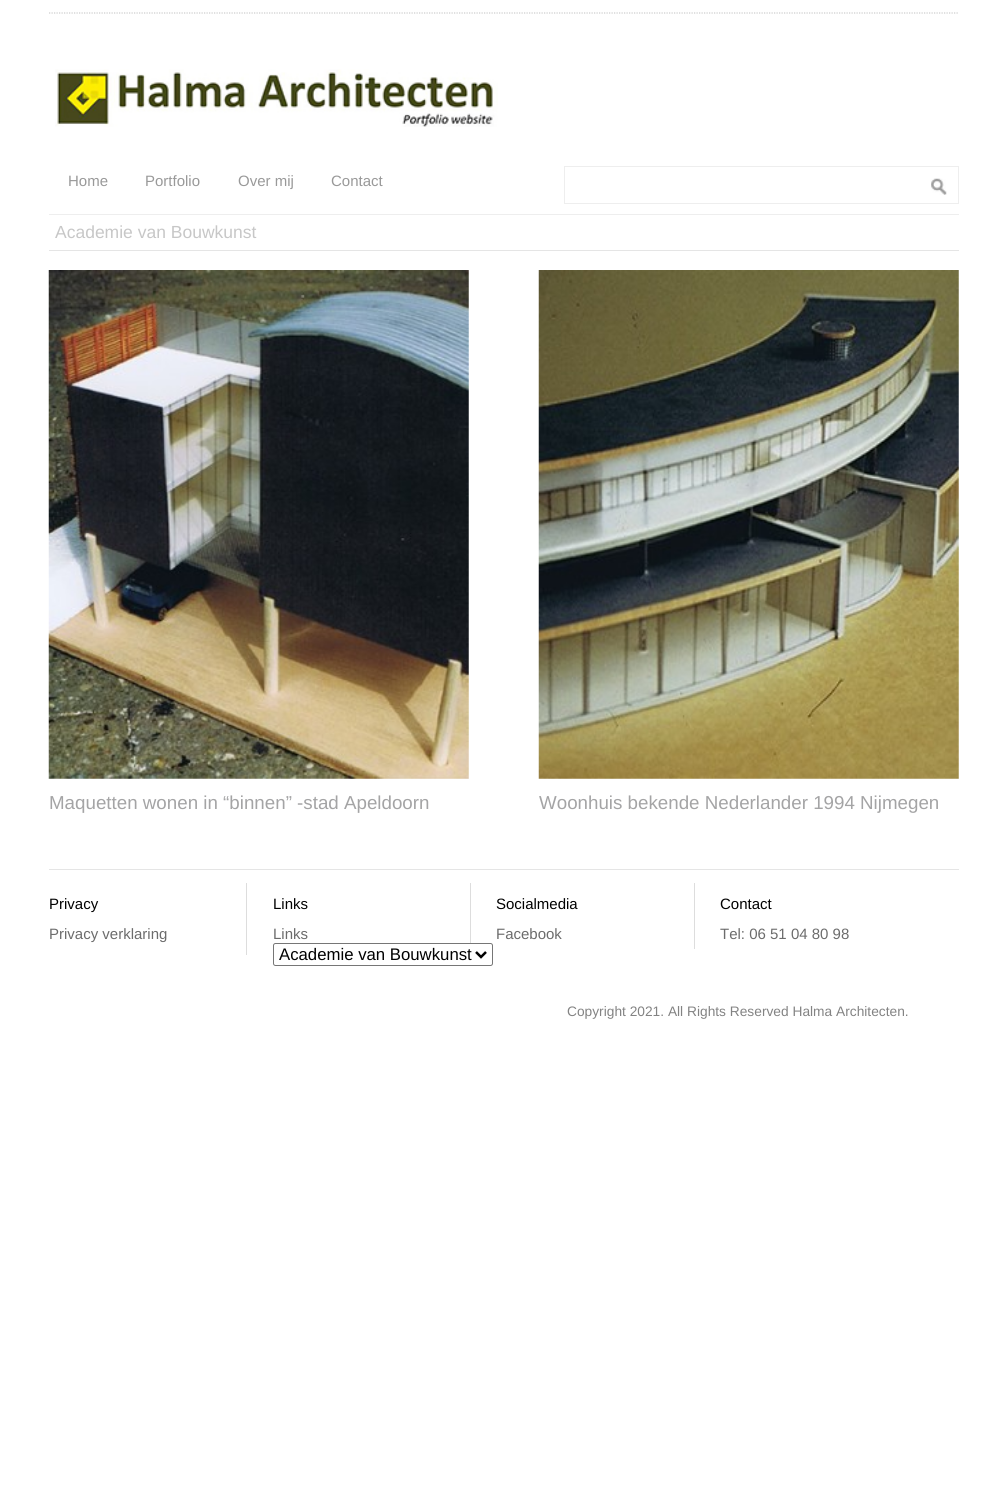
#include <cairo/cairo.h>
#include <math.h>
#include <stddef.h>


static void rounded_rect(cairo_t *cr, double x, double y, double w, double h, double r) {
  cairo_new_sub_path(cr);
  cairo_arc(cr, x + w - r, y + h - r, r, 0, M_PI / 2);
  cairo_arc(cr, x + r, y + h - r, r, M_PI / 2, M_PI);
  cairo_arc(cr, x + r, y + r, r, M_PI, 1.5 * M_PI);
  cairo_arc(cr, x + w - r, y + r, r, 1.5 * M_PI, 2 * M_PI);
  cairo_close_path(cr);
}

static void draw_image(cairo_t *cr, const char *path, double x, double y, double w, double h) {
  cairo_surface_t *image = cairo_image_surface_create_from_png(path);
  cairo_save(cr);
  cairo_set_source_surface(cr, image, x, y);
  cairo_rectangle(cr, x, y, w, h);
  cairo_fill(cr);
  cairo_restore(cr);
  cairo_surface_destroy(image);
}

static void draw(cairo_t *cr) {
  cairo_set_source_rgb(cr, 1, 1, 1);
  cairo_paint(cr);
  cairo_new_path(cr);
  cairo_move_to(cr, 49, 13);
  cairo_line_to(cr, 959, 13);
  cairo_set_source_rgb(cr, 204 / 255.0, 204 / 255.0, 204 / 255.0);
  cairo_set_line_width(cr, 1.2);
  cairo_set_dash(cr, (double[]){1.25, 1.25}, 2, 0);
  cairo_stroke(cr);
  draw_image(cr, "images/1.png", 55, 69, 443, 58);
  cairo_rectangle(cr, 564.5, 166.5, 394, 37);
  cairo_set_source_rgb(cr, 238 / 255.0, 238 / 255.0, 238 / 255.0);
  cairo_set_line_width(cr, 1);
  cairo_set_dash(cr, NULL, 0, 0);
  cairo_stroke(cr);
  draw_image(cr, "images/2.png", 931, 178, 16, 17);
  cairo_rectangle(cr, 49, 214, 910, 1);
  cairo_fill(cr);
  cairo_set_source_rgb(cr, 229 / 255.0, 229 / 255.0, 229 / 255.0);
  cairo_rectangle(cr, 49, 250, 910, 1);
  cairo_fill(cr);
  draw_image(cr, "images/3.png", 48, 270, 421, 509);
  draw_image(cr, "images/4.png", 538, 270, 421, 509);
  cairo_rectangle(cr, 49, 869, 910, 1);
  cairo_fill(cr);
  cairo_set_source_rgb(cr, 221 / 255.0, 221 / 255.0, 221 / 255.0);
  cairo_rectangle(cr, 246, 883, 1, 72);
  cairo_fill(cr);
  cairo_rectangle(cr, 470, 883, 1, 60);
  cairo_fill(cr);
  rounded_rect(cr, 273.5, 943.5, 219, 22, 2);
  cairo_set_source_rgb(cr, 118 / 255.0, 118 / 255.0, 118 / 255.0);
  cairo_stroke(cr);
  cairo_new_path(cr);
  cairo_move_to(cr, 476, 952);
  cairo_line_to(cr, 481, 957);
  cairo_line_to(cr, 486, 952);
  cairo_set_source_rgb(cr, 0, 0, 0);
  cairo_set_line_width(cr, 2.5);
  cairo_stroke(cr);
  cairo_set_source_rgb(cr, 221 / 255.0, 221 / 255.0, 221 / 255.0);
  cairo_rectangle(cr, 694, 883, 1, 66);
  cairo_fill(cr);
  cairo_select_font_face(cr, "Liberation Sans", CAIRO_FONT_SLANT_NORMAL, CAIRO_FONT_WEIGHT_NORMAL);
  cairo_set_font_size(cr, 15);
  cairo_set_source_rgb(cr, 153 / 255.0, 153 / 255.0, 153 / 255.0);
  cairo_move_to(cr, 68, 186);
  cairo_show_text(cr, "Home");
  cairo_move_to(cr, 145, 186);
  cairo_show_text(cr, "Portfolio");
  cairo_move_to(cr, 238, 186);
  cairo_show_text(cr, "Over mij");
  cairo_move_to(cr, 331, 186);
  cairo_show_text(cr, "Contact");
  cairo_set_font_size(cr, 17.5);
  cairo_set_source_rgb(cr, 199 / 255.0, 199 / 255.0, 199 / 255.0);
  cairo_move_to(cr, 55, 238);
  cairo_show_text(cr, "Academie van Bouwkunst");
  cairo_set_font_size(cr, 18.75);
  cairo_set_source_rgb(cr, 164 / 255.0, 164 / 255.0, 165 / 255.0);
  cairo_move_to(cr, 49, 809);
  cairo_show_text(cr, "Maquetten wonen in “binnen” -stad Apeldoorn");
  cairo_move_to(cr, 539, 809);
  cairo_show_text(cr, "Woonhuis bekende Nederlander 1994 Nijmegen");
  cairo_set_font_size(cr, 15);
  cairo_set_source_rgb(cr, 1 / 255.0, 1 / 255.0, 1 / 255.0);
  cairo_move_to(cr, 49, 909);
  cairo_show_text(cr, "Privacy");
  cairo_set_source_rgb(cr, 108 / 255.0, 108 / 255.0, 108 / 255.0);
  cairo_move_to(cr, 49, 939);
  cairo_show_text(cr, "Privacy verklaring");
  cairo_set_source_rgb(cr, 1 / 255.0, 1 / 255.0, 1 / 255.0);
  cairo_move_to(cr, 273, 909);
  cairo_show_text(cr, "Links");
  cairo_set_source_rgb(cr, 108 / 255.0, 108 / 255.0, 108 / 255.0);
  cairo_move_to(cr, 273, 939);
  cairo_show_text(cr, "Links");
  cairo_set_font_size(cr, 16.75);
  cairo_set_source_rgb(cr, 1 / 255.0, 1 / 255.0, 1 / 255.0);
  cairo_move_to(cr, 279, 960);
  cairo_show_text(cr, "Academie van Bouwkunst");
  cairo_set_font_size(cr, 15);
  cairo_move_to(cr, 496, 909);
  cairo_show_text(cr, "Socialmedia");
  cairo_set_source_rgb(cr, 108 / 255.0, 108 / 255.0, 108 / 255.0);
  cairo_move_to(cr, 496, 939);
  cairo_show_text(cr, "Facebook");
  cairo_set_source_rgb(cr, 1 / 255.0, 1 / 255.0, 1 / 255.0);
  cairo_move_to(cr, 720, 909);
  cairo_show_text(cr, "Contact");
  cairo_set_source_rgb(cr, 108 / 255.0, 108 / 255.0, 108 / 255.0);
  cairo_move_to(cr, 720, 939);
  cairo_show_text(cr, "Tel: 06 51 04 80 98");
  cairo_set_font_size(cr, 13.75);
  cairo_set_source_rgb(cr, 131 / 255.0, 131 / 255.0, 131 / 255.0);
  cairo_move_to(cr, 567, 1016);
  cairo_show_text(cr, "Copyright 2021. All Rights Reserved Halma Architecten.");
}

int main(void) {
  cairo_surface_t *surface = cairo_image_surface_create(CAIRO_FORMAT_RGB24, 1007, 1492);
  cairo_t *cr = cairo_create(surface);
  cairo_font_options_t *options = cairo_font_options_create();
  cairo_font_options_set_hint_metrics(options, CAIRO_HINT_METRICS_OFF);
  cairo_font_options_set_hint_style(options, CAIRO_HINT_STYLE_NONE);
  cairo_set_font_options(cr, options);
  cairo_set_miter_limit(cr, 4);
  draw(cr);
  cairo_surface_write_to_png(surface, "out.png");
  cairo_font_options_destroy(options);
  cairo_destroy(cr);
  cairo_surface_destroy(surface);
  return 0;
}
